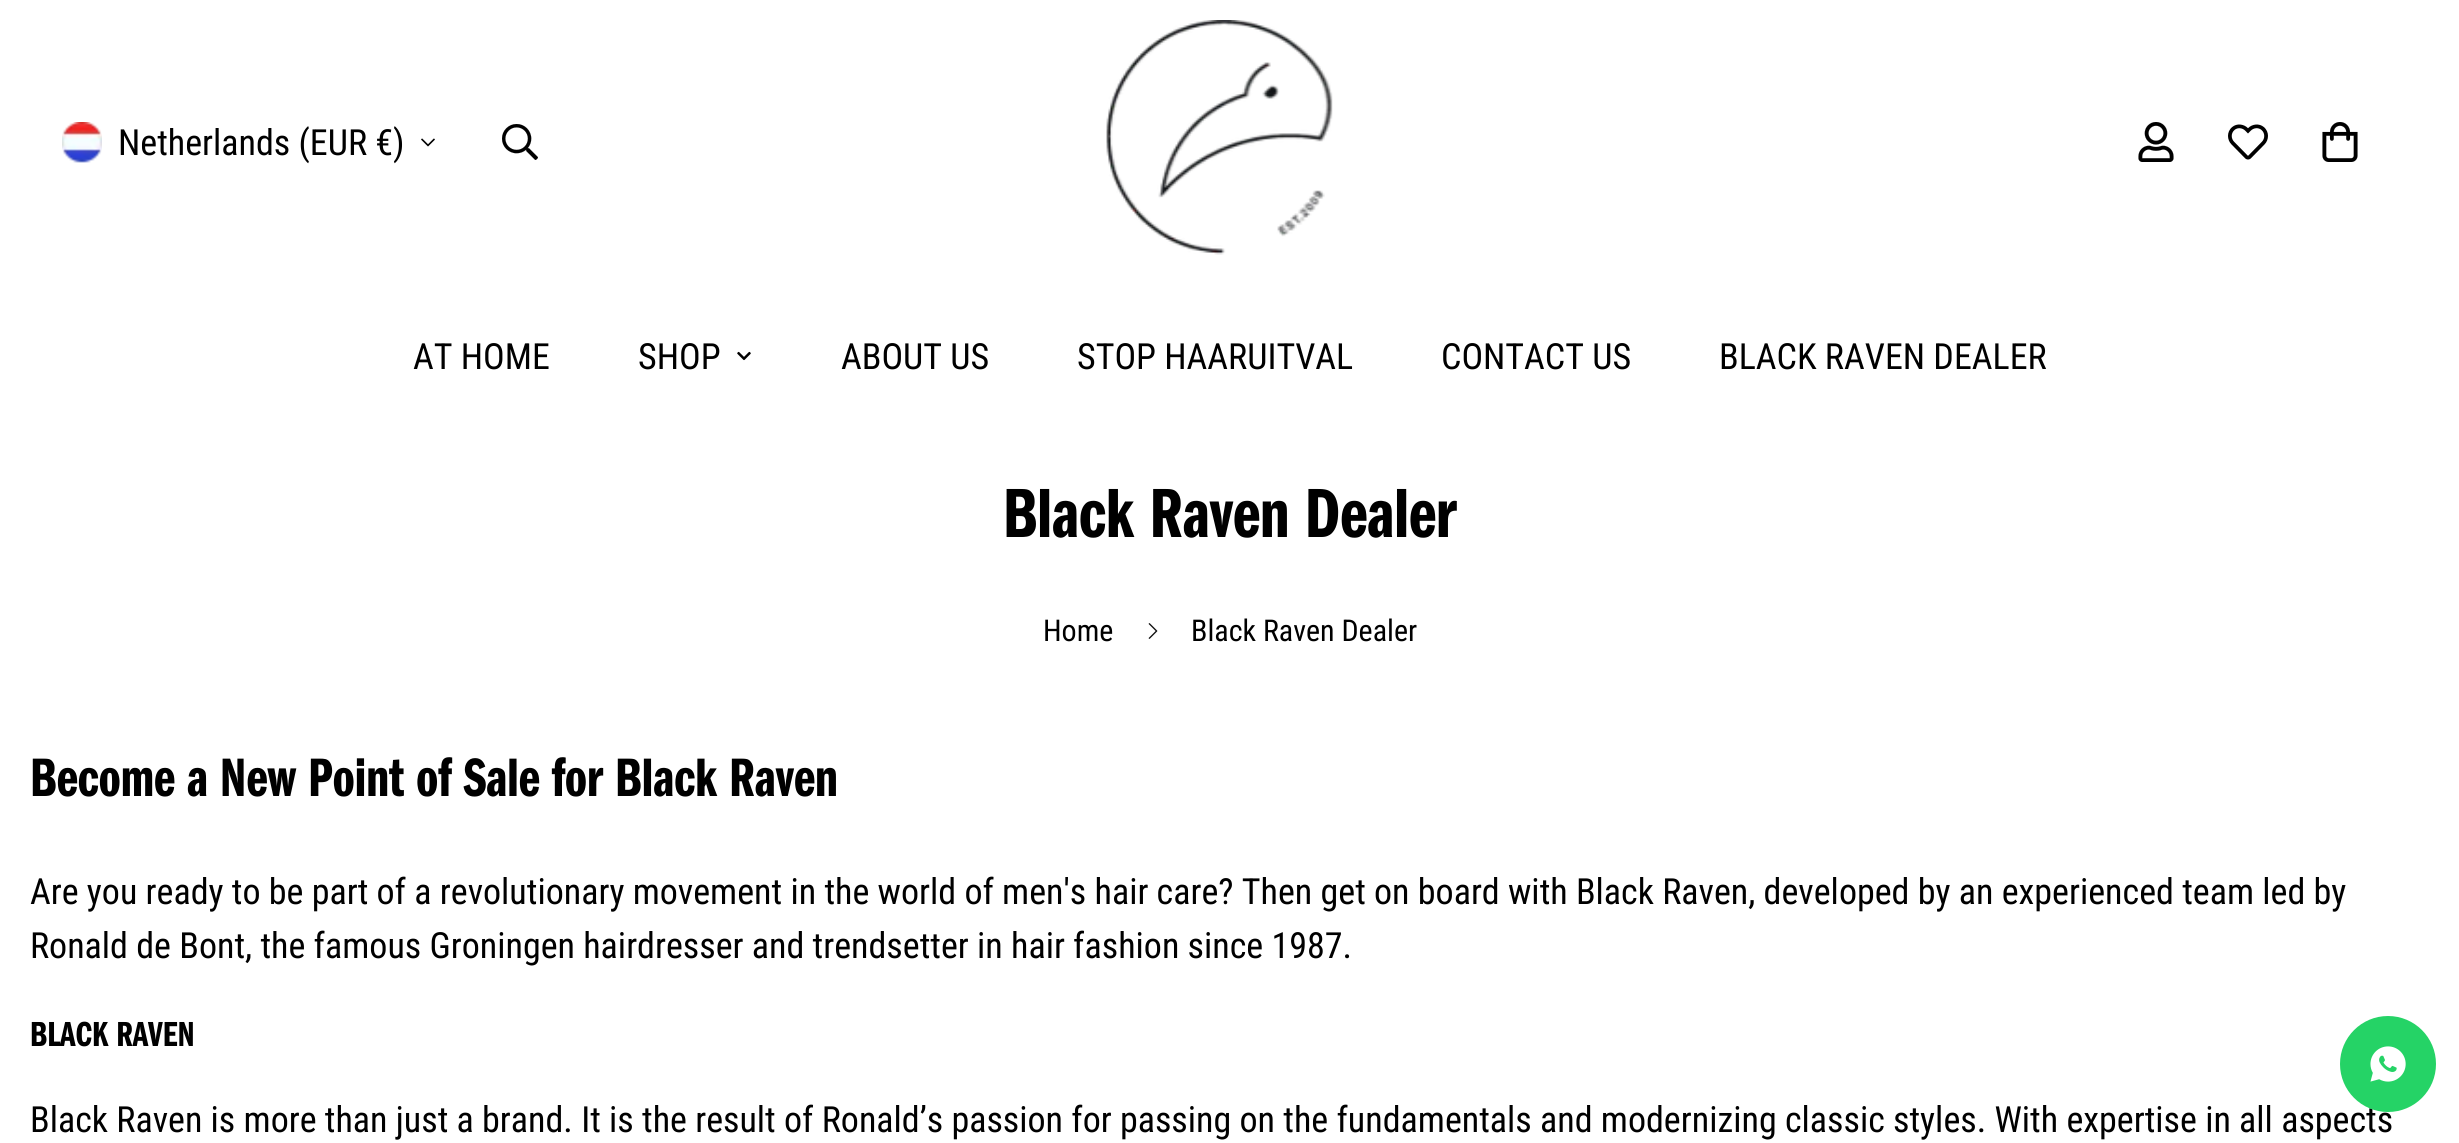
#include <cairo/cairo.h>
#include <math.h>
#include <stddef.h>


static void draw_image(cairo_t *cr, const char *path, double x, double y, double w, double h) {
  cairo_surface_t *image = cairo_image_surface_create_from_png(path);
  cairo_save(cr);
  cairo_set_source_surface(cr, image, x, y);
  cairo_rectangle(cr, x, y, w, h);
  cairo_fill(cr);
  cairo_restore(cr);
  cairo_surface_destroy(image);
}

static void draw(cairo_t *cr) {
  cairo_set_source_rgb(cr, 1, 1, 1);
  cairo_paint(cr);
  draw_image(cr, "images/1.png", 62, 122, 40, 41);
  draw_image(cr, "images/2.png", 421, 138, 14, 9);
  draw_image(cr, "images/3.png", 502, 124, 36, 36);
  draw_image(cr, "images/4.png", 1106, 20, 227, 235);
  draw_image(cr, "images/5.png", 2138, 122, 36, 40);
  draw_image(cr, "images/6.png", 2228, 124, 40, 36);
  draw_image(cr, "images/7.png", 2322, 122, 36, 40);
  draw_image(cr, "images/8.png", 737, 351, 14, 10);
  draw_image(cr, "images/9.png", 1148, 623, 10, 16);
  cairo_select_font_face(cr, "Roboto Condensed", CAIRO_FONT_SLANT_NORMAL, CAIRO_FONT_WEIGHT_NORMAL);
  cairo_set_font_size(cr, 36);
  cairo_set_source_rgb(cr, 0, 0, 0);
  cairo_move_to(cr, 118, 155);
  cairo_show_text(cr, "Netherlands (EUR €)");
  cairo_move_to(cr, 413, 369);
  cairo_show_text(cr, "AT HOME");
  cairo_move_to(cr, 638, 369);
  cairo_show_text(cr, "SHOP");
  cairo_move_to(cr, 841, 369);
  cairo_show_text(cr, "ABOUT US");
  cairo_move_to(cr, 1077, 369);
  cairo_show_text(cr, "STOP HAARUITVAL");
  cairo_move_to(cr, 1441, 369);
  cairo_show_text(cr, "CONTACT US");
  cairo_move_to(cr, 1719, 369);
  cairo_show_text(cr, "BLACK RAVEN DEALER");
  cairo_select_font_face(cr, "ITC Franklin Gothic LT", CAIRO_FONT_SLANT_NORMAL, CAIRO_FONT_WEIGHT_BOLD);
  cairo_set_font_size(cr, 72);
  cairo_move_to(cr, 1003, 537);
  cairo_show_text(cr, "Black Raven Dealer");
  cairo_select_font_face(cr, "Roboto Condensed", CAIRO_FONT_SLANT_NORMAL, CAIRO_FONT_WEIGHT_NORMAL);
  cairo_set_font_size(cr, 30);
  cairo_move_to(cr, 1043, 641);
  cairo_show_text(cr, "Home");
  cairo_move_to(cr, 1191, 641);
  cairo_show_text(cr, "Black Raven Dealer");
  cairo_select_font_face(cr, "ITC Franklin Gothic LT", CAIRO_FONT_SLANT_NORMAL, CAIRO_FONT_WEIGHT_BOLD);
  cairo_set_font_size(cr, 56);
  cairo_move_to(cr, 30, 796);
  cairo_show_text(cr, "Become a New Point of Sale for Black Raven");
  cairo_select_font_face(cr, "Roboto Condensed", CAIRO_FONT_SLANT_NORMAL, CAIRO_FONT_WEIGHT_NORMAL);
  cairo_set_font_size(cr, 36);
  cairo_move_to(cr, 30, 904);
  cairo_show_text(cr, "Are you ready to be part of a revolutionary movement in the world of men's hair care? Then get on board with Black Raven, developed by an experienced team led by");
  cairo_move_to(cr, 30, 958);
  cairo_show_text(cr, "Ronald de Bont, the famous Groningen hairdresser and trendsetter in hair fashion since 1987.");
  cairo_select_font_face(cr, "ITC Franklin Gothic LT", CAIRO_FONT_SLANT_NORMAL, CAIRO_FONT_WEIGHT_BOLD);
  cairo_move_to(cr, 30, 1046);
  cairo_show_text(cr, "BLACK RAVEN");
  cairo_select_font_face(cr, "Roboto Condensed", CAIRO_FONT_SLANT_NORMAL, CAIRO_FONT_WEIGHT_NORMAL);
  cairo_move_to(cr, 30, 1132);
  cairo_show_text(cr, "Black Raven is more than just a brand. It is the result of Ronald’s passion for passing on the fundamentals and modernizing classic styles. With expertise in all aspects");
  cairo_set_source_rgb(cr, 37 / 255.0, 211 / 255.0, 102 / 255.0);
  cairo_new_path(cr);
  cairo_arc(cr, 2388, 1064, 48, 0, 2 * M_PI);
  cairo_fill(cr);
  draw_image(cr, "images/10.png", 2370, 1046, 36, 36);
}

int main(void) {
  cairo_surface_t *surface = cairo_image_surface_create(CAIRO_FORMAT_RGB24, 2459, 1143);
  cairo_t *cr = cairo_create(surface);
  cairo_font_options_t *options = cairo_font_options_create();
  cairo_font_options_set_hint_metrics(options, CAIRO_HINT_METRICS_OFF);
  cairo_font_options_set_hint_style(options, CAIRO_HINT_STYLE_NONE);
  cairo_set_font_options(cr, options);
  cairo_set_miter_limit(cr, 4);
  draw(cr);
  cairo_surface_write_to_png(surface, "out.png");
  cairo_font_options_destroy(options);
  cairo_destroy(cr);
  cairo_surface_destroy(surface);
  return 0;
}
